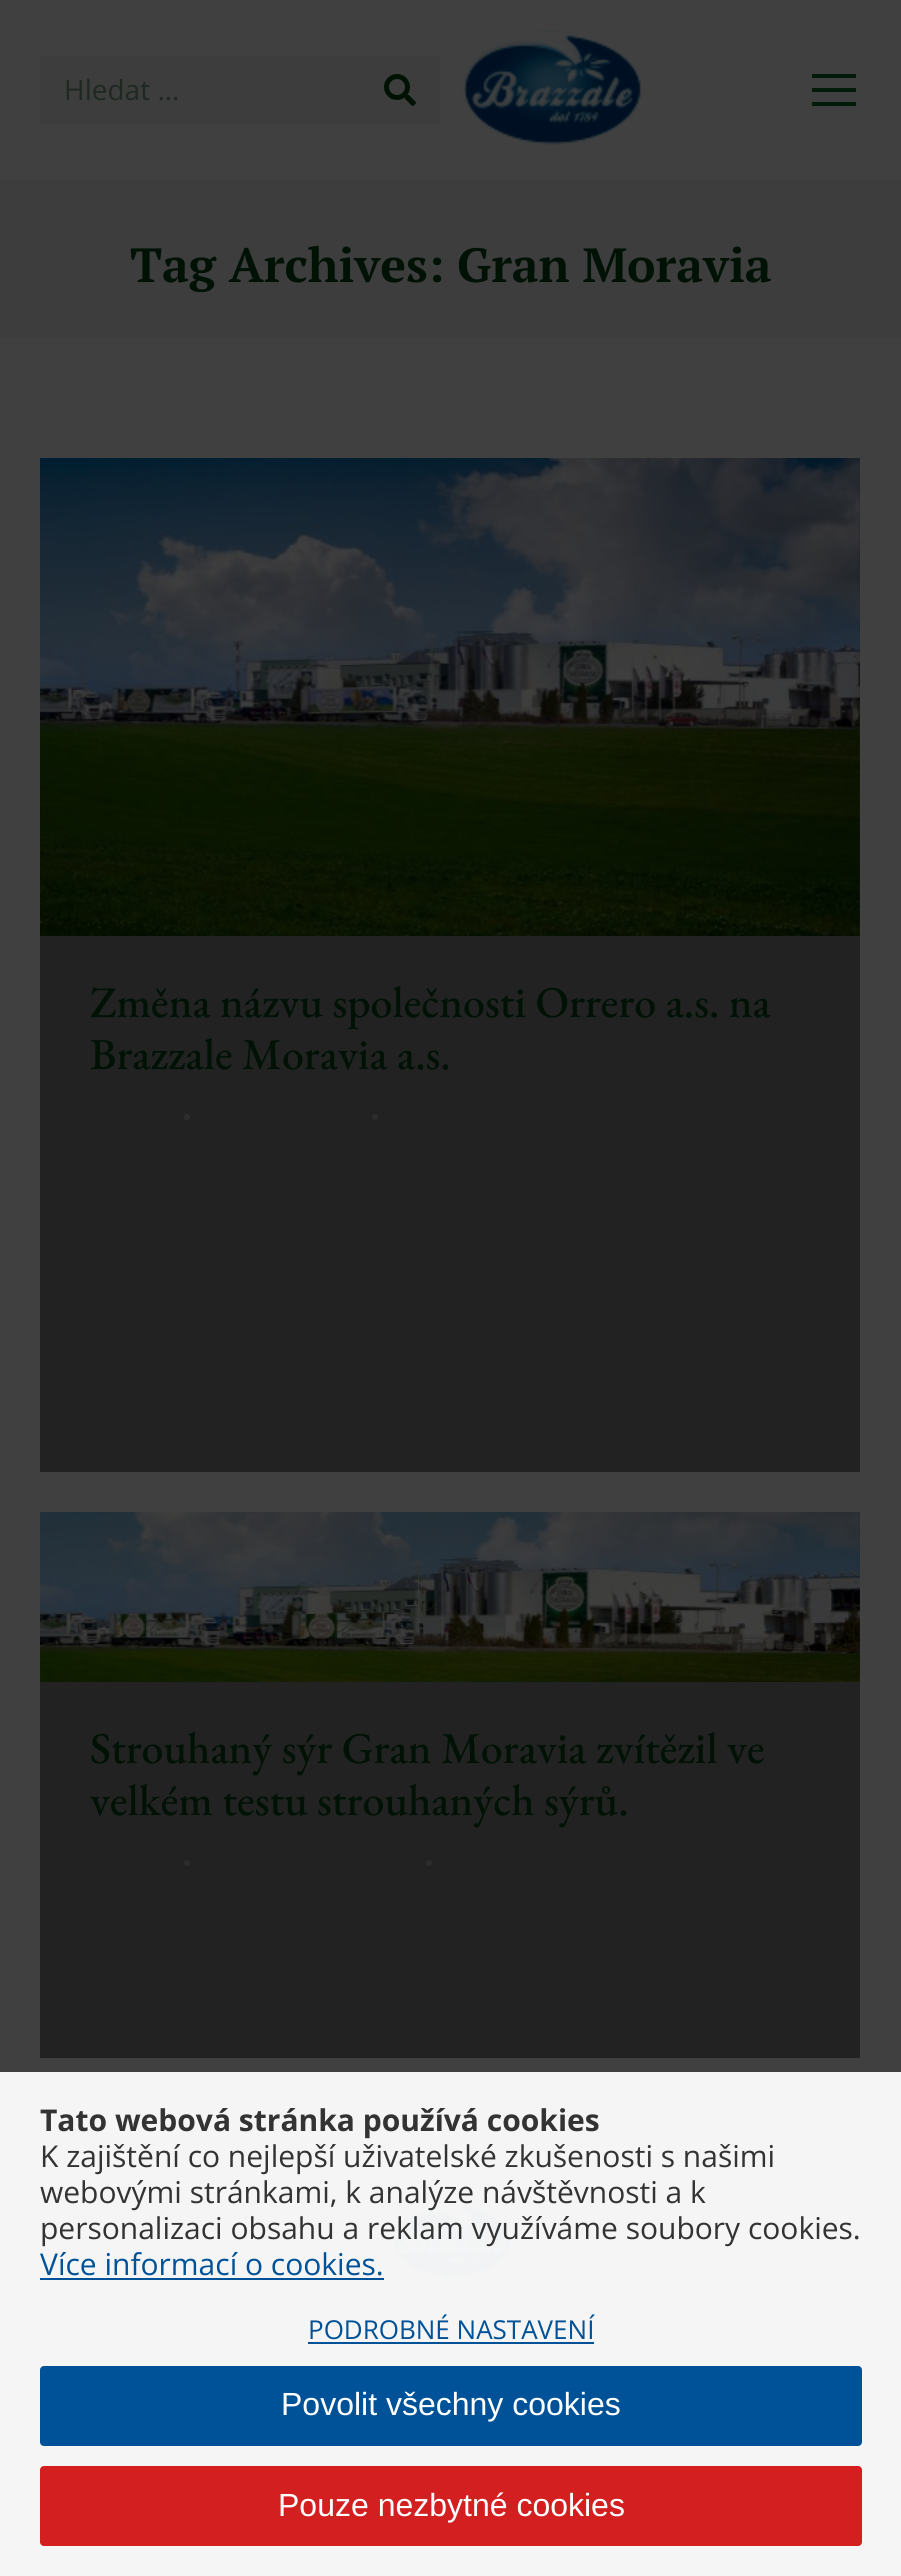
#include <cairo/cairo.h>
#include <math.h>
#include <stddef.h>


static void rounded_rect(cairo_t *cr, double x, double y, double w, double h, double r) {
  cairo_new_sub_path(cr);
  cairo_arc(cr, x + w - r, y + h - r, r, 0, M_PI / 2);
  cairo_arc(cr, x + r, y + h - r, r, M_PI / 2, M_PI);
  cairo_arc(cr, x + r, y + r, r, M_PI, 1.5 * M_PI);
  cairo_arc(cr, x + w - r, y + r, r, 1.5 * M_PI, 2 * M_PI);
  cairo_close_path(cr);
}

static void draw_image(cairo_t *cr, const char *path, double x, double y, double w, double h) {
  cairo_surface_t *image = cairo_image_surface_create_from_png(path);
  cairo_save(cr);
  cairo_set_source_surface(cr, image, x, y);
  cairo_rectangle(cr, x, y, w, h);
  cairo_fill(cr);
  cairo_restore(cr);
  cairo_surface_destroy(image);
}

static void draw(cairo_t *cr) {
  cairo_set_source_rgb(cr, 64 / 255.0, 64 / 255.0, 64 / 255.0);
  cairo_paint(cr);
  cairo_set_source_rgb(cr, 245 / 255.0, 245 / 255.0, 245 / 255.0);
  cairo_rectangle(cr, 0, 2072, 901, 504);
  cairo_fill(cr);
  cairo_set_source_rgb(cr, 61 / 255.0, 61 / 255.0, 61 / 255.0);
  cairo_rectangle(cr, 40, 56, 400, 68);
  cairo_fill(cr);
  draw_image(cr, "images/1.png", 384, 74, 32, 32);
  draw_image(cr, "images/2.png", 463, 30, 179, 115);
  cairo_set_source_rgb(cr, 0, 27 / 255.0, 10 / 255.0);
  cairo_rectangle(cr, 812, 74, 44, 4);
  cairo_fill(cr);
  cairo_rectangle(cr, 812, 88, 44, 4);
  cairo_fill(cr);
  cairo_rectangle(cr, 812, 102, 44, 4);
  cairo_fill(cr);
  cairo_set_source_rgb(cr, 61 / 255.0, 61 / 255.0, 61 / 255.0);
  cairo_rectangle(cr, 0, 180, 901, 158);
  cairo_fill(cr);
  cairo_set_source_rgb(cr, 34 / 255.0, 34 / 255.0, 34 / 255.0);
  cairo_rectangle(cr, 40, 458, 820, 1014);
  cairo_fill(cr);
  draw_image(cr, "images/3.png", 40, 458, 820, 478);
  cairo_set_source_rgb(cr, 45 / 255.0, 45 / 255.0, 47 / 255.0);
  cairo_arc(cr, 187, 1117, 3, 0, 2 * M_PI);
  cairo_fill(cr);
  cairo_arc(cr, 375, 1117, 3, 0, 2 * M_PI);
  cairo_fill(cr);
  cairo_set_source_rgb(cr, 34 / 255.0, 34 / 255.0, 34 / 255.0);
  cairo_rectangle(cr, 40, 1512, 820, 546);
  cairo_fill(cr);
  draw_image(cr, "images/4.png", 40, 1512, 820, 170);
  cairo_set_source_rgb(cr, 45 / 255.0, 45 / 255.0, 47 / 255.0);
  cairo_arc(cr, 187, 1863, 3, 0, 2 * M_PI);
  cairo_fill(cr);
  cairo_arc(cr, 429, 1863, 3, 0, 2 * M_PI);
  cairo_fill(cr);
  draw_image(cr, "images/5.png", 390, 2202, 124, 78);
  cairo_set_source_rgb(cr, 0, 82 / 255.0, 152 / 255.0);
  cairo_rectangle(cr, 40, 2278, 344, 2);
  cairo_fill(cr);
  cairo_rectangle(cr, 308, 2342, 286, 2);
  cairo_fill(cr);
  rounded_rect(cr, 40, 2366, 822, 80, 4);
  cairo_fill(cr);
  cairo_set_source_rgb(cr, 211 / 255.0, 31 / 255.0, 31 / 255.0);
  rounded_rect(cr, 40, 2466, 822, 80, 4);
  cairo_fill(cr);
  cairo_select_font_face(cr, "Open Sans", CAIRO_FONT_SLANT_NORMAL, CAIRO_FONT_WEIGHT_NORMAL);
  cairo_set_font_size(cr, 28);
  cairo_set_source_rgb(cr, 31 / 255.0, 40 / 255.0, 33 / 255.0);
  cairo_move_to(cr, 64, 100);
  cairo_show_text(cr, "Hledat …");
  cairo_select_font_face(cr, "PT Serif", CAIRO_FONT_SLANT_NORMAL, CAIRO_FONT_WEIGHT_BOLD);
  cairo_set_font_size(cr, 48);
  cairo_set_source_rgb(cr, 0, 18 / 255.0, 5 / 255.0);
  cairo_move_to(cr, 130, 282);
  cairo_show_text(cr, "Tag Archives: Gran Moravia");
  cairo_select_font_face(cr, "EB Garamond Medium", CAIRO_FONT_SLANT_NORMAL, CAIRO_FONT_WEIGHT_NORMAL);
  cairo_set_font_size(cr, 44);
  cairo_move_to(cr, 90, 1017);
  cairo_show_text(cr, "Změna názvu společnosti Orrero a.s. na");
  cairo_move_to(cr, 90, 1069);
  cairo_show_text(cr, "Brazzale Moravia a.s.");
  cairo_move_to(cr, 90, 1763);
  cairo_show_text(cr, "Strouhaný sýr Gran Moravia zvítězil ve");
  cairo_move_to(cr, 90, 1815);
  cairo_show_text(cr, "velkém testu strouhaných sýrů.");
  cairo_select_font_face(cr, "Open Sans", CAIRO_FONT_SLANT_NORMAL, CAIRO_FONT_WEIGHT_BOLD);
  cairo_set_font_size(cr, 30);
  cairo_set_source_rgb(cr, 51 / 255.0, 51 / 255.0, 51 / 255.0);
  cairo_move_to(cr, 40, 2131);
  cairo_show_text(cr, "Tato webová stránka používá cookies");
  cairo_select_font_face(cr, "Open Sans", CAIRO_FONT_SLANT_NORMAL, CAIRO_FONT_WEIGHT_NORMAL);
  cairo_move_to(cr, 40, 2167);
  cairo_show_text(cr, "K zajištění co nejlepší uživatelské zkušenosti s našimi");
  cairo_move_to(cr, 40, 2203);
  cairo_show_text(cr, "webovými stránkami, k analýze návštěvnosti a k");
  cairo_move_to(cr, 40, 2239);
  cairo_show_text(cr, "personalizaci obsahu a reklam využíváme soubory cookies.");
  cairo_set_source_rgb(cr, 0, 82 / 255.0, 152 / 255.0);
  cairo_move_to(cr, 40, 2275);
  cairo_show_text(cr, "Více informací o cookies.");
  cairo_set_font_size(cr, 26);
  cairo_move_to(cr, 308, 2339);
  cairo_show_text(cr, "PODROBNÉ NASTAVENÍ");
  cairo_select_font_face(cr, "Liberation Sans", CAIRO_FONT_SLANT_NORMAL, CAIRO_FONT_WEIGHT_NORMAL);
  cairo_set_font_size(cr, 32);
  cairo_set_source_rgb(cr, 1, 1, 1);
  cairo_move_to(cr, 281, 2415);
  cairo_show_text(cr, "Povolit všechny cookies");
  cairo_move_to(cr, 278, 2516);
  cairo_show_text(cr, "Pouze nezbytné cookies");
}

int main(void) {
  cairo_surface_t *surface = cairo_image_surface_create(CAIRO_FORMAT_RGB24, 901, 2576);
  cairo_t *cr = cairo_create(surface);
  cairo_font_options_t *options = cairo_font_options_create();
  cairo_font_options_set_hint_metrics(options, CAIRO_HINT_METRICS_OFF);
  cairo_font_options_set_hint_style(options, CAIRO_HINT_STYLE_NONE);
  cairo_set_font_options(cr, options);
  cairo_set_miter_limit(cr, 4);
  draw(cr);
  cairo_surface_write_to_png(surface, "out.png");
  cairo_font_options_destroy(options);
  cairo_destroy(cr);
  cairo_surface_destroy(surface);
  return 0;
}
